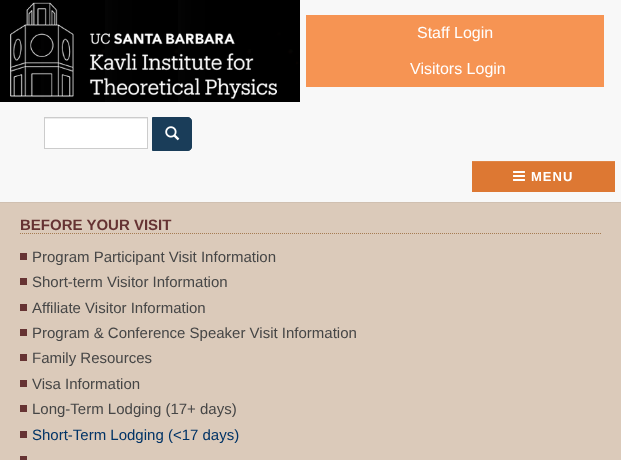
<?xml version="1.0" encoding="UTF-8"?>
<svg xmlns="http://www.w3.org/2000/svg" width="621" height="460">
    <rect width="100%" height="100%" fill="#F8F8F8"/>
    <image x="0" y="0" width="300" height="102" href="img_01.png"/>
    <image x="10" y="2" width="267" height="97" href="img_02.png"/>
    <rect x="306" y="15" width="298" height="72" fill="#F69453"/>
    <text x="417" y="38" font-family="Liberation Sans" font-size="16" fill="#FFFFFF">Staff Login</text>
    <text x="410" y="74" font-family="Liberation Sans" font-size="16" fill="#FFFFFF">Visitors Login</text>
    <rect x="45" y="119" width="102" height="29" fill="#FFFFFF"/>
    <rect x="45" y="118" width="102" height="1" fill="#ECECEC"/>
    <rect x="44.5" y="117.5" width="103" height="31" fill="none" stroke="#CCCCCC"/>
    <path d="M 152.5 117.5 H 188 C 190 117.5 191.5 119 191.5 121 V 147 C 191.5 149 190 150.5 188 150.5 H 152.5 Z" fill="#1A3D59" stroke="#1A3D59"/>
    <image x="165" y="126" width="15" height="15" href="img_03.png"/>
    <rect x="472" y="162" width="143" height="30" fill="#DD7833"/>
    <rect x="472" y="161" width="143" height="1" fill="#E08647"/>
    <image x="513" y="171" width="12" height="10" href="img_04.png"/>
    <text x="531" y="181" font-family="Liberation Sans" font-size="13" font-weight="700" letter-spacing="1" fill="#FFFFFF">MENU</text>
    <rect x="0" y="203" width="621" height="257" fill="#DBCABA"/>
    <rect x="0" y="202" width="621" height="1" fill="#D0C0B1"/>
    <path d="M 20 233.5 H 601" fill="none" stroke="#A67C52" stroke-dasharray="1 1"/>
    <text x="20" y="230" font-family="Liberation Sans" font-size="15" font-weight="700" fill="#663333">BEFORE YOUR VISIT</text>
    <rect x="20" y="253" width="7" height="7" fill="#663333"/>
    <text x="32" y="262" font-family="Liberation Sans" font-size="15" fill="#464646">Program Participant Visit Information</text>
    <rect x="20" y="278" width="7" height="7" fill="#663333"/>
    <text x="32" y="287" font-family="Liberation Sans" font-size="15" fill="#464646">Short-term Visitor Information</text>
    <rect x="20" y="304" width="7" height="7" fill="#663333"/>
    <text x="32" y="313" font-family="Liberation Sans" font-size="15" fill="#464646">Affiliate Visitor Information</text>
    <rect x="20" y="329" width="7" height="7" fill="#663333"/>
    <text x="32" y="338" font-family="Liberation Sans" font-size="15" fill="#464646">Program &amp; Conference Speaker Visit Information</text>
    <rect x="20" y="354" width="7" height="7" fill="#663333"/>
    <text x="32" y="363" font-family="Liberation Sans" font-size="15" fill="#464646">Family Resources</text>
    <rect x="20" y="380" width="7" height="7" fill="#663333"/>
    <text x="32" y="389" font-family="Liberation Sans" font-size="15" fill="#464646">Visa Information</text>
    <rect x="20" y="405" width="7" height="7" fill="#663333"/>
    <text x="32" y="414" font-family="Liberation Sans" font-size="15" fill="#464646">Long-Term Lodging (17+ days)</text>
    <rect x="20" y="431" width="7" height="7" fill="#663333"/>
    <text x="32" y="440" font-family="Liberation Sans" font-size="15" fill="#003366">Short-Term Lodging (&lt;17 days)</text>
    <rect x="20" y="456" width="7" height="4" fill="#663333"/>
</svg>
